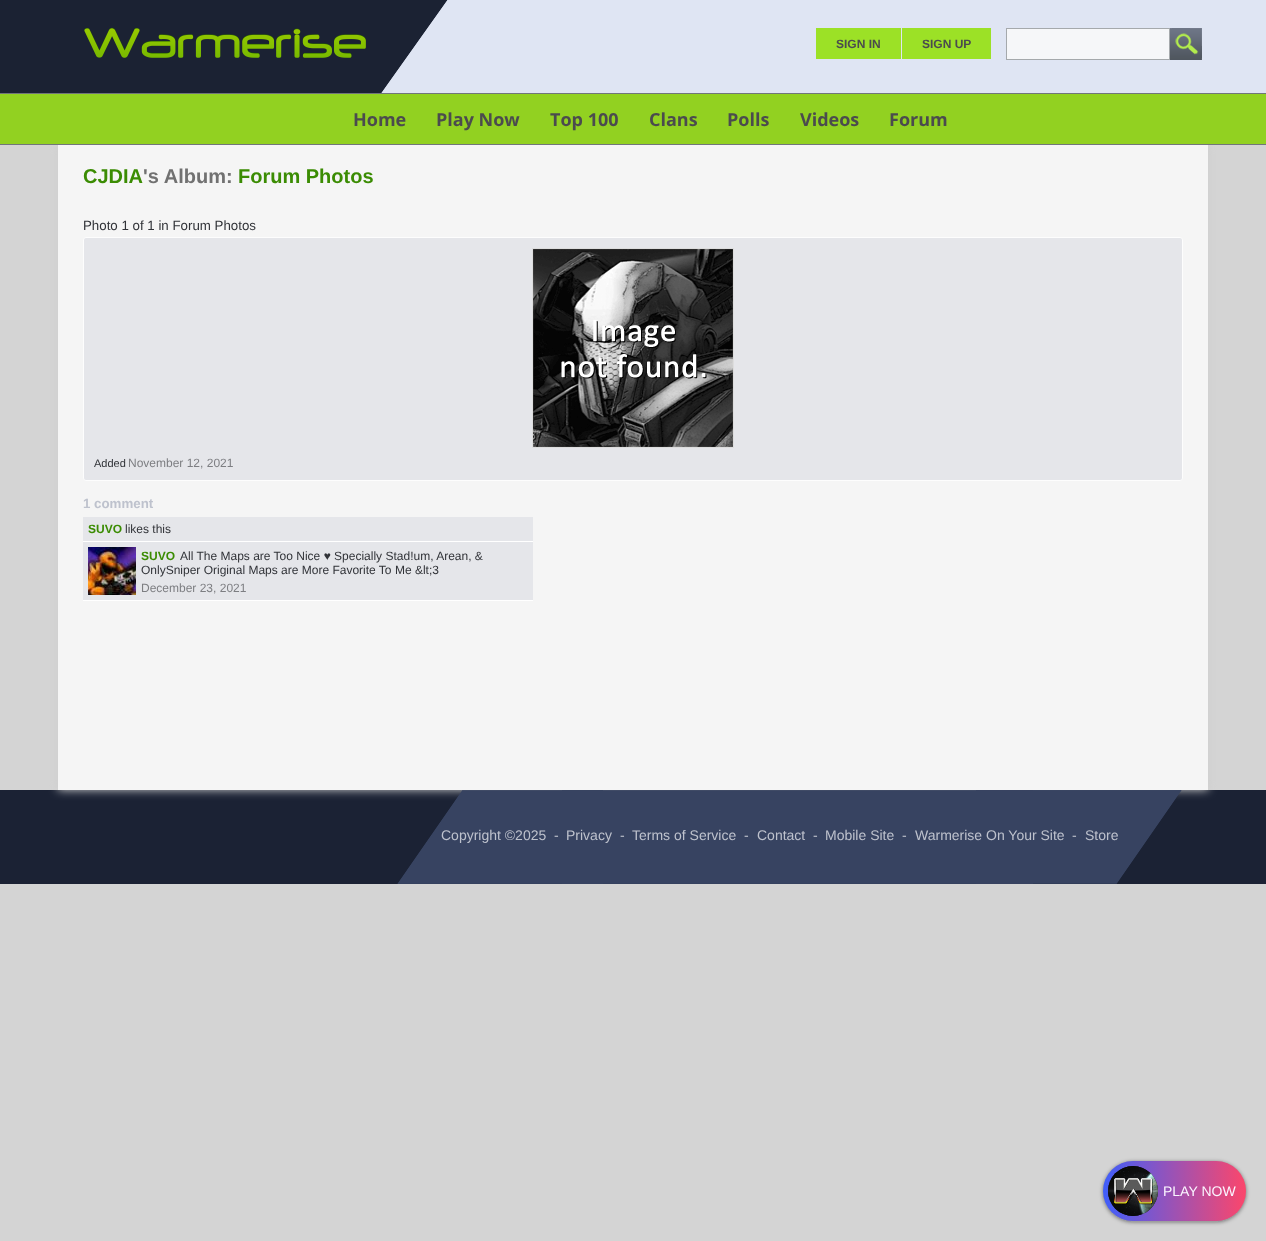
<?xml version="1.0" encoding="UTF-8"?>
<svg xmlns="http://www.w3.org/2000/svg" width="1266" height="1241">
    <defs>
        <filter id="blur1" x="-50%" y="-200%" width="200%" height="500%"><feGaussianBlur stdDeviation="5"/></filter>
        <filter id="blur2" x="-50%" y="-200%" width="200%" height="500%"><feGaussianBlur stdDeviation="2"/></filter>
        <linearGradient id="g1" gradientUnits="userSpaceOnUse" x1="1103" y1="1191" x2="1246" y2="1191"><stop offset="0" stop-color="#3F5EFB"/><stop offset="1" stop-color="#FC466B"/></linearGradient>
    </defs>
    <rect width="100%" height="100%" fill="#D4D4D4"/>
    <rect x="0" y="790" width="1266" height="94" fill="#1B2234"/>
    <rect x="58" y="145" width="1150" height="645" fill="#CDCDCD" filter="url(#blur1)"/>
    <rect x="58" y="145" width="1150" height="645" fill="#F5F5F5"/>
    <text x="83" y="183" font-family="Liberation Sans" font-size="20" font-weight="700" fill="#3B8C03">CJDIA</text>
    <text x="143" y="183" font-family="Liberation Sans" font-size="20" font-weight="700" fill="#717171">'s Album:</text>
    <text x="238" y="183" font-family="Liberation Sans" font-size="20" font-weight="700" fill="#3B8C03">Forum Photos</text>
    <text x="83" y="230" font-family="Liberation Sans" font-size="13.3" fill="#313338">Photo 1 of 1 in Forum Photos</text>
    <rect x="83.5" y="237.5" width="1099" height="243" rx="2.5" fill="#E5E6EA" stroke="#FDFDFD"/>
    <rect x="532.5" y="248.5" width="201" height="199" fill="none" stroke="#DDDDDD"/>
    <image x="533" y="249" width="200" height="198" href="img_01.png"/>
    <text x="94" y="467" font-family="Liberation Sans" font-size="11" fill="#313338">Added</text>
    <text x="128" y="467" font-family="Liberation Sans" font-size="12" fill="#7D7E82">November 12, 2021</text>
    <text x="83" y="508" font-family="Liberation Sans" font-size="13.3" font-weight="700" fill="#BEC2CD">1 comment</text>
    <rect x="83" y="517" width="450" height="24" fill="#E5E6EA"/>
    <rect x="83" y="541" width="450" height="1" fill="#FFFFFF"/>
    <text x="88" y="533" font-family="Liberation Sans" font-size="12" font-weight="700" fill="#3B8C03">SUVO</text>
    <text x="125" y="533" font-family="Liberation Sans" font-size="12" fill="#313338">likes this</text>
    <rect x="83" y="542" width="450" height="58" fill="#E5E6EA"/>
    <rect x="83" y="600" width="450" height="1" fill="#FFFFFF"/>
    <image x="88" y="547" width="48" height="48" href="img_02.png"/>
    <text x="141" y="560" font-family="Liberation Sans" font-size="12" font-weight="700" fill="#3B8C03">SUVO</text>
    <text x="180" y="560" font-family="Liberation Sans" font-size="12" fill="#313338">All The Maps are Too Nice ♥ Specially Stad!um, Arean, &amp;</text>
    <text x="141" y="574" font-family="Liberation Sans" font-size="12" fill="#313338">OnlySniper Original Maps are More Favorite To Me &amp;lt;3</text>
    <text x="141" y="592" font-family="Liberation Sans" font-size="12" fill="#7D7E82">December 23, 2021</text>
    <rect x="381" y="0" width="885" height="93" fill="#DFE5F3"/>
    <rect x="0" y="0" width="58" height="93" fill="#1B2233"/>
    <image x="58" y="0" width="390" height="93" href="img_03.png"/>
    <image x="84" y="27" width="282" height="31" href="img_04.png"/>
    <rect x="816" y="28" width="85" height="31" fill="#9CE126"/>
    <text x="836" y="48" font-family="Liberation Sans" font-size="12" font-weight="700" fill="#4B4B4E">SIGN IN</text>
    <rect x="902" y="28" width="89" height="31" fill="#9CE126"/>
    <text x="922" y="48" font-family="Liberation Sans" font-size="12" font-weight="700" fill="#4B4B4E">SIGN UP</text>
    <image x="1170" y="28" width="32" height="32" href="img_05.png"/>
    <rect x="1006.5" y="28.5" width="163" height="31" fill="#F6F7F9" stroke="#A5A9AC"/>
    <rect x="0" y="94" width="1266" height="50" fill="#92D121"/>
    <rect x="0" y="93" width="1266" height="1" fill="#71767A"/>
    <rect x="0" y="144" width="1266" height="1" fill="#71767A"/>
    <text x="353" y="126" font-family="Open Sans" font-size="18" font-weight="700" fill="#4B4B4E">Home</text>
    <text x="436" y="126" font-family="Open Sans" font-size="18" font-weight="700" fill="#4B4B4E">Play Now</text>
    <text x="550" y="126" font-family="Open Sans" font-size="18" font-weight="700" fill="#4B4B4E">Top 100</text>
    <text x="649" y="126" font-family="Open Sans" font-size="18" font-weight="700" fill="#4B4B4E">Clans</text>
    <text x="727" y="126" font-family="Open Sans" font-size="18" font-weight="700" fill="#4B4B4E">Polls</text>
    <text x="800" y="126" font-family="Open Sans" font-size="18" font-weight="700" fill="#4B4B4E">Videos</text>
    <text x="889" y="126" font-family="Open Sans" font-size="18" font-weight="700" fill="#4B4B4E">Forum</text>
    <rect x="1103" y="1162" width="143" height="60" rx="30" fill="#101011" fill-opacity="0.5" filter="url(#blur2)"/>
    <rect x="1103" y="1161" width="143" height="60" rx="30" fill="url(#g1)"/>
    <circle cx="1133" cy="1191" r="25" fill="#0E0E0F"/>
    <image x="1108" y="1166" width="50" height="50" href="img_06.png"/>
    <text x="1163" y="1196" font-family="Liberation Sans" font-size="14" fill="#FBF5FF">PLAY NOW</text>
    <image x="397" y="790" width="785" height="94" href="img_07.png"/>
    <text x="441" y="840" font-family="Liberation Sans" font-size="14" fill="#BEC2CD">Copyright ©2025</text>
    <text x="554" y="840" font-family="Liberation Sans" font-size="14" fill="#BEC2CD">-</text>
    <text x="566" y="840" font-family="Liberation Sans" font-size="14" fill="#BEC2CD">Privacy</text>
    <text x="620" y="840" font-family="Liberation Sans" font-size="14" fill="#BEC2CD">-</text>
    <text x="632" y="840" font-family="Liberation Sans" font-size="14" fill="#BEC2CD">Terms of Service</text>
    <text x="744" y="840" font-family="Liberation Sans" font-size="14" fill="#BEC2CD">-</text>
    <text x="757" y="840" font-family="Liberation Sans" font-size="14" fill="#BEC2CD">Contact</text>
    <text x="813" y="840" font-family="Liberation Sans" font-size="14" fill="#BEC2CD">-</text>
    <text x="825" y="840" font-family="Liberation Sans" font-size="14" fill="#BEC2CD">Mobile Site</text>
    <text x="902" y="840" font-family="Liberation Sans" font-size="14" fill="#BEC2CD">-</text>
    <text x="915" y="840" font-family="Liberation Sans" font-size="14" fill="#BEC2CD">Warmerise On Your Site</text>
    <text x="1072" y="840" font-family="Liberation Sans" font-size="14" fill="#BEC2CD">-</text>
    <text x="1085" y="840" font-family="Liberation Sans" font-size="14" fill="#BEC2CD">Store</text>
</svg>
